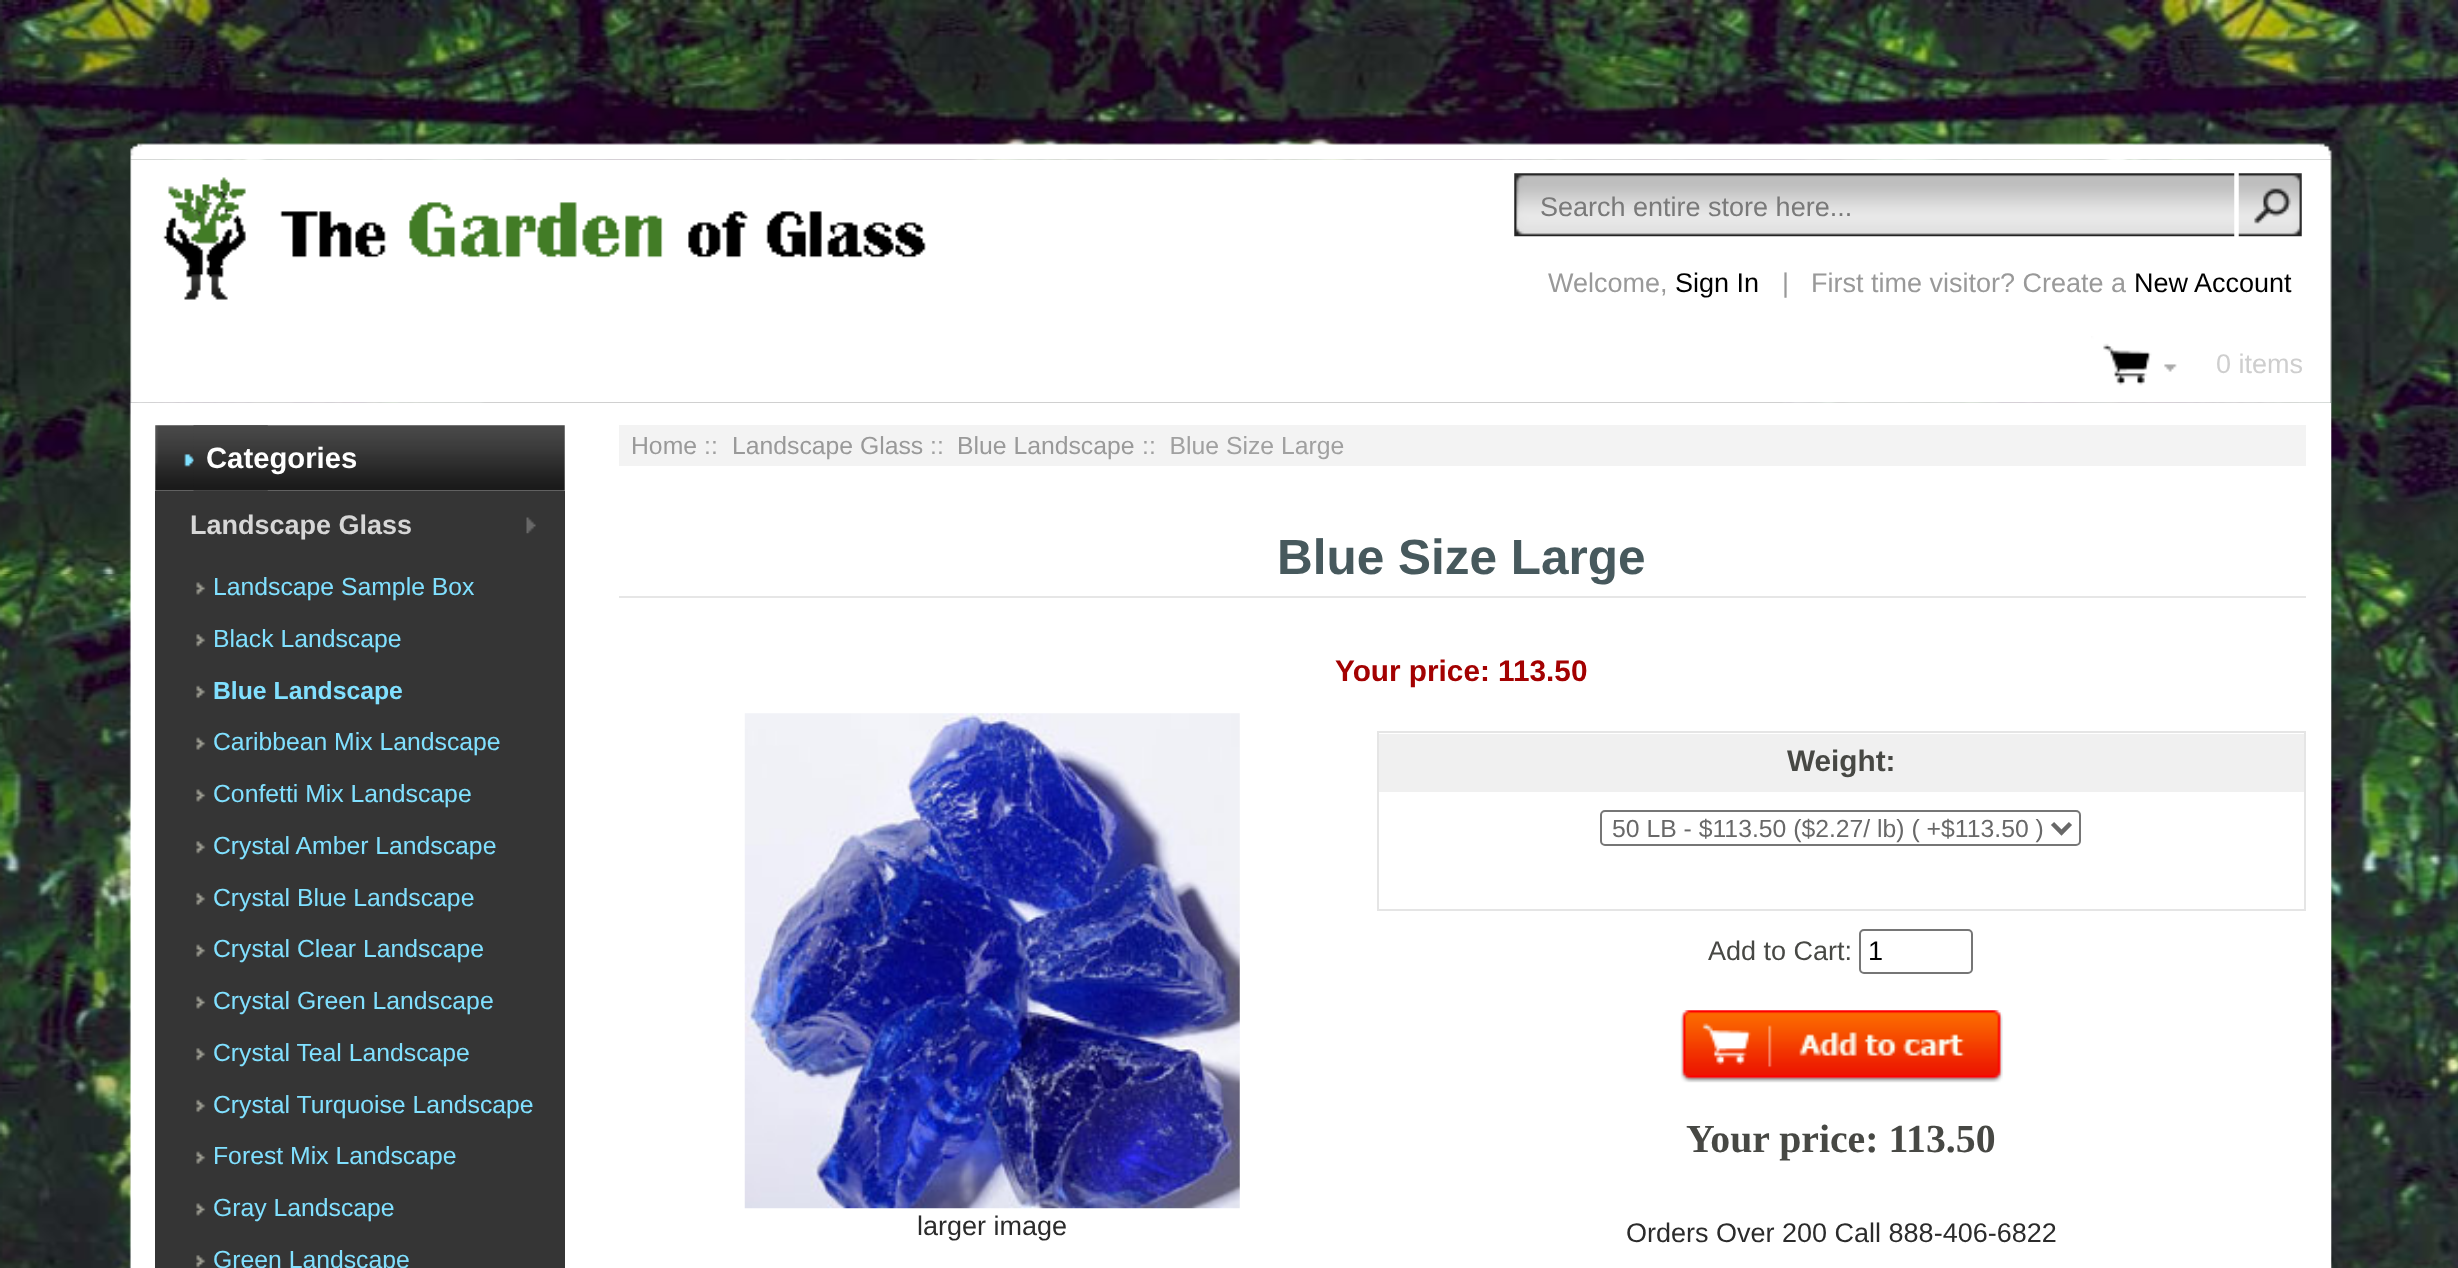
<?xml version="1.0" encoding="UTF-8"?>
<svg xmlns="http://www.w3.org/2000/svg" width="2458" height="1268">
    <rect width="100%" height="100%" fill="#FFFFFF"/>
    <image x="0" y="0" width="2458" height="1268" href="img_01.png"/>
    <image x="130" y="143" width="2202" height="17" href="img_02.png"/>
    <image x="130" y="159" width="2202" height="244" href="img_03.png"/>
    <image x="163" y="177" width="763" height="123" href="img_04.png"/>
    <image x="1514" y="173" width="721" height="64" href="img_05.png"/>
    <text x="1540" y="216" font-family="Liberation Sans" font-size="27" fill="#797979">Search entire store here...</text>
    <image x="2238" y="173" width="64" height="64" href="img_06.png"/>
    <text x="1548" y="292" font-family="Liberation Sans" font-size="27" fill="#999999">Welcome,</text>
    <text x="1675" y="292" font-family="Liberation Sans" font-size="27" fill="#000000">Sign In</text>
    <text x="1782" y="292" font-family="Liberation Sans" font-size="27" fill="#999999">|</text>
    <text x="1811" y="292" font-family="Liberation Sans" font-size="27" fill="#999999">First time visitor? Create a</text>
    <text x="2134" y="292" font-family="Liberation Sans" font-size="27" fill="#000000">New Account</text>
    <image x="2091" y="336" width="86" height="50" href="img_07.png"/>
    <text x="2216" y="373" font-family="Liberation Sans" font-size="27" fill="#CECECE">0 items</text>
    <image x="129" y="402" width="2203" height="866" href="img_08.png"/>
    <rect x="2330" y="403" width="1" height="865" fill="#FFFFFF"/>
    <rect x="131" y="403" width="1" height="865" fill="#FFFFFF"/>
    <image x="155" y="425" width="113" height="66" href="img_09.png"/>
    <image x="193" y="425" width="372" height="66" href="img_10.png"/>
    <text x="206" y="468" font-family="Liberation Sans" font-size="29.25" font-weight="700" fill="#FFFFFF">Categories</text>
    <rect x="155" y="491" width="410" height="777" fill="#353535"/>
    <image x="155" y="490" width="410" height="1" href="img_11.png"/>
    <image x="526" y="517" width="10" height="17" href="img_12.png"/>
    <text x="190" y="534" font-family="Liberation Sans" font-size="27" font-weight="700" fill="#D6D6D6">Landscape Glass</text>
    <image x="196" y="582" width="10" height="13" href="img_13.png"/>
    <text x="213" y="595" font-family="Liberation Sans" font-size="24.75" fill="#80E0FF">Landscape Sample Box</text>
    <image x="196" y="634" width="10" height="13" href="img_14.png"/>
    <text x="213" y="647" font-family="Liberation Sans" font-size="24.75" fill="#80E0FF">Black Landscape</text>
    <image x="196" y="685" width="10" height="14" href="img_15.png"/>
    <text x="213" y="699" font-family="Liberation Sans" font-size="24.75" font-weight="700" fill="#80E0FF">Blue Landscape</text>
    <image x="196" y="737" width="10" height="13" href="img_16.png"/>
    <text x="213" y="750" font-family="Liberation Sans" font-size="24.75" fill="#80E0FF">Caribbean Mix Landscape</text>
    <image x="196" y="789" width="10" height="13" href="img_13.png"/>
    <text x="213" y="802" font-family="Liberation Sans" font-size="24.75" fill="#80E0FF">Confetti Mix Landscape</text>
    <image x="196" y="841" width="10" height="13" href="img_14.png"/>
    <text x="213" y="854" font-family="Liberation Sans" font-size="24.75" fill="#80E0FF">Crystal Amber Landscape</text>
    <image x="196" y="892" width="10" height="14" href="img_15.png"/>
    <text x="213" y="906" font-family="Liberation Sans" font-size="24.75" fill="#80E0FF">Crystal Blue Landscape</text>
    <image x="196" y="944" width="10" height="13" href="img_16.png"/>
    <text x="213" y="957" font-family="Liberation Sans" font-size="24.75" fill="#80E0FF">Crystal Clear Landscape</text>
    <image x="196" y="996" width="10" height="13" href="img_13.png"/>
    <text x="213" y="1009" font-family="Liberation Sans" font-size="24.75" fill="#80E0FF">Crystal Green Landscape</text>
    <image x="196" y="1048" width="10" height="13" href="img_14.png"/>
    <text x="213" y="1061" font-family="Liberation Sans" font-size="24.75" fill="#80E0FF">Crystal Teal Landscape</text>
    <image x="196" y="1099" width="10" height="14" href="img_15.png"/>
    <text x="213" y="1113" font-family="Liberation Sans" font-size="24.75" fill="#80E0FF">Crystal Turquoise Landscape</text>
    <image x="196" y="1151" width="10" height="13" href="img_16.png"/>
    <text x="213" y="1164" font-family="Liberation Sans" font-size="24.75" fill="#80E0FF">Forest Mix Landscape</text>
    <image x="196" y="1203" width="10" height="13" href="img_13.png"/>
    <text x="213" y="1216" font-family="Liberation Sans" font-size="24.75" fill="#80E0FF">Gray Landscape</text>
    <image x="196" y="1255" width="10" height="13" href="img_14.png"/>
    <text x="213" y="1268" font-family="Liberation Sans" font-size="24.75" fill="#80E0FF">Green Landscape</text>
    <rect x="619" y="425" width="1687" height="41" fill="#F3F3F3"/>
    <text x="631" y="454" font-family="Liberation Sans" font-size="24.75" fill="#999999">Home</text>
    <text x="704" y="454" font-family="Liberation Sans" font-size="24.75" fill="#A0A0A0">::</text>
    <text x="732" y="454" font-family="Liberation Sans" font-size="24.75" fill="#999999">Landscape Glass</text>
    <text x="930" y="454" font-family="Liberation Sans" font-size="24.75" fill="#A0A0A0">::</text>
    <text x="957" y="454" font-family="Liberation Sans" font-size="24.75" fill="#999999">Blue Landscape</text>
    <text x="1142" y="454" font-family="Liberation Sans" font-size="24.75" fill="#A0A0A0" xml:space="preserve">::  Blue Size Large</text>
    <rect x="619" y="596" width="1687" height="2" fill="#E6E6E6"/>
    <text x="1277" y="574" font-family="Liberation Sans" font-size="49.5" font-weight="700" fill="#47595D">Blue Size Large</text>
    <text x="1335" y="681" font-family="Liberation Sans" font-size="29.75" font-weight="700" fill="#A30101">Your price: 113.50</text>
    <image x="744" y="713" width="496" height="496" href="img_17.png"/>
    <text x="917" y="1235" font-family="Liberation Sans" font-size="27" fill="#2B2B2B">larger image</text>
    <rect x="1378" y="732" width="927" height="178" fill="none" stroke="#E5E5E5" stroke-width="2"/>
    <rect x="1379" y="734" width="925" height="58" fill="#F0F0F0"/>
    <text x="1787" y="771" font-family="Liberation Sans" font-size="29.75" font-weight="700" fill="#474844">Weight:</text>
    <rect x="1601" y="811" width="479" height="34" rx="4" fill="none" stroke="#767676" stroke-width="2"/>
    <path d="M 2052.5 823.5 L 2061.5 832.5 L 2070.5 823.5" fill="none" stroke="#686868" stroke-width="4.5"/>
    <text x="1612" y="837" font-family="Liberation Sans" font-size="24.75" fill="#686868">50 LB - $113.50 ($2.27/ lb) ( +$113.50 )</text>
    <text x="1708" y="960" font-family="Liberation Sans" font-size="27" fill="#474844">Add to Cart:</text>
    <rect x="1860" y="930" width="112" height="43" rx="4" fill="none" stroke="#767676" stroke-width="2"/>
    <text x="1868" y="960" font-family="Liberation Sans" font-size="27" fill="#000000">1</text>
    <image x="1680" y="1010" width="323" height="73" href="img_18.png"/>
    <text x="1686" y="1152" font-family="Liberation Serif" font-size="39.75" font-weight="700" fill="#474844">Your price: 113.50</text>
    <text x="1626" y="1242" font-family="Liberation Sans" font-size="27" fill="#2B2B2B">Orders Over 200 Call 888-406-6822</text>
</svg>
